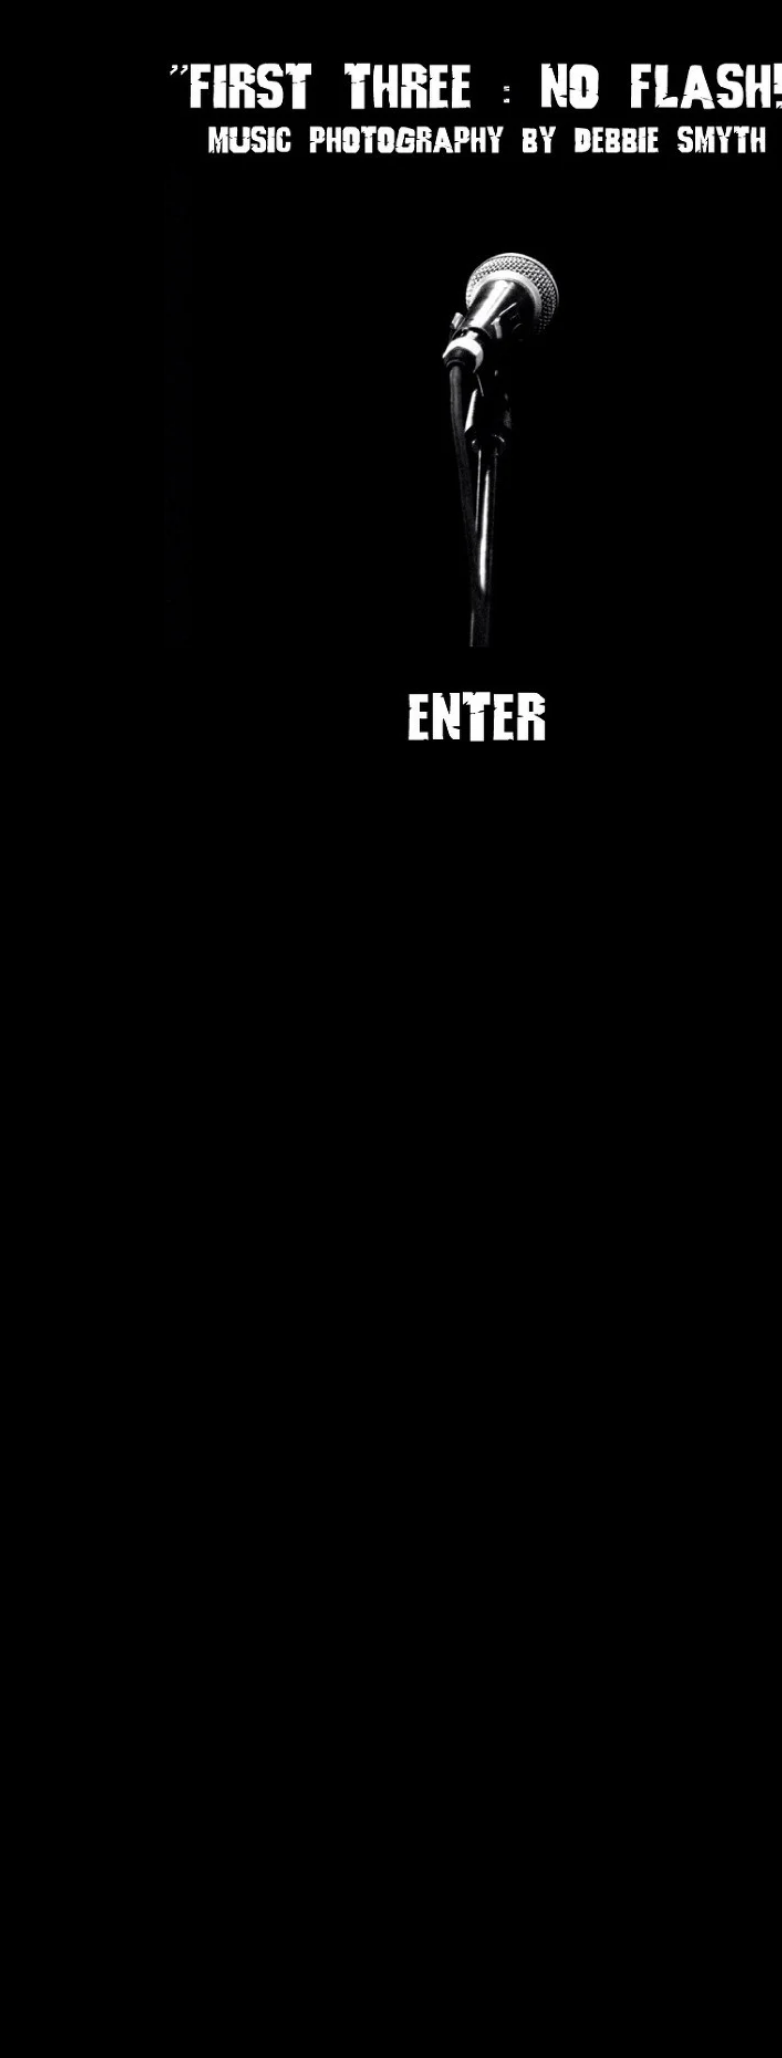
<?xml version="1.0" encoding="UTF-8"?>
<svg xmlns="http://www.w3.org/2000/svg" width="782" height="2058">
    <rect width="100%" height="100%" fill="#000000"/>
    <image x="164" y="60" width="618" height="682" href="img_01.png"/>
</svg>
